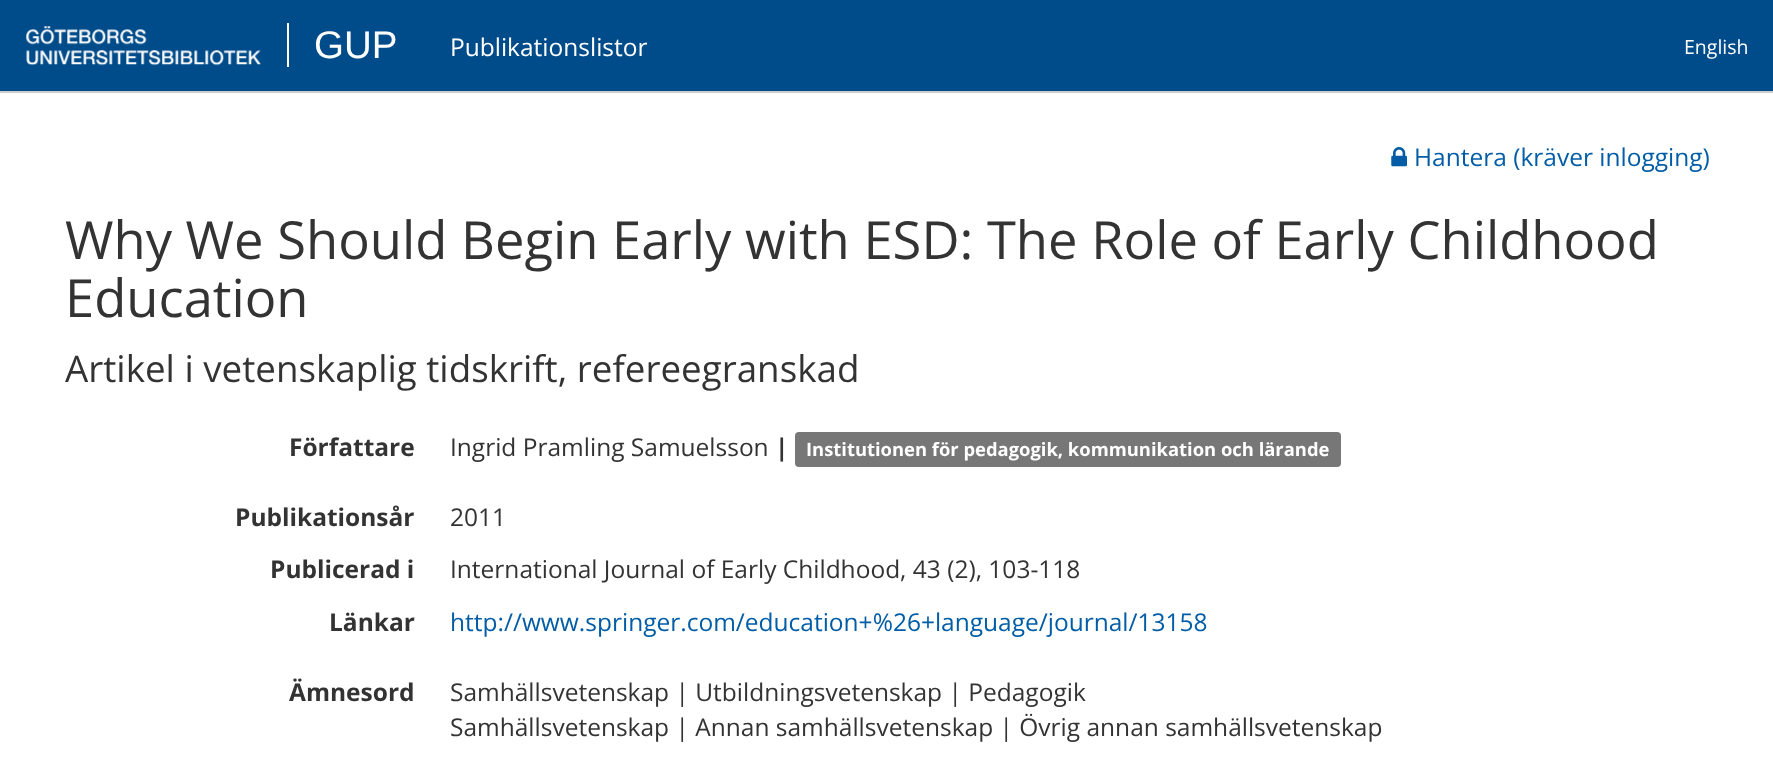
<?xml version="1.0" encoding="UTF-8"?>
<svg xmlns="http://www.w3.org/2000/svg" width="1773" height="757">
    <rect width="100%" height="100%" fill="#FFFFFF"/>
    <rect x="0" y="0" width="1773" height="91" fill="#004B89"/>
    <rect x="0" y="91" width="1773" height="2" fill="#CCCCCC"/>
    <image x="26" y="26" width="235" height="40" href="img_01.png"/>
    <rect x="287" y="23" width="2" height="44" fill="#FFFFFF"/>
    <text x="314" y="58" font-family="Liberation Sans" font-size="38.5" fill="#FFFFFF">GUP</text>
    <text x="450" y="56" font-family="Open Sans" font-size="24.5" fill="#FFFFFF">Publikationslistor</text>
    <text x="1684" y="54" font-family="Open Sans" font-size="19.5" fill="#FFFFFF">English</text>
    <image x="1391" y="147" width="16" height="20" href="img_02.png"/>
    <text x="1414" y="166" font-family="Open Sans" font-size="24.5" fill="#025DA6">Hantera (kräver inlogging)</text>
    <text font-family="Open Sans" font-size="52.5" fill="#333333">
        <tspan x="65" y="259">Why We Should Begin Early with ESD: The Role of Early Childhood</tspan>
        <tspan x="65" y="317">Education</tspan>
    </text>
    <text x="65" y="382" font-family="Open Sans" font-size="36.75" fill="#333333">Artikel i vetenskaplig tidskrift, refereegranskad</text>
    <text x="289" y="456" font-family="Open Sans" font-size="24.5" font-weight="700" fill="#333333">Författare</text>
    <text x="450" y="456" font-family="Open Sans" font-size="24.5" fill="#333333">Ingrid Pramling Samuelsson</text>
    <text x="775" y="456" font-family="Open Sans" font-size="24.5" font-weight="700" fill="#333333">|</text>
    <rect x="795" y="432" width="546" height="35" rx="4" fill="#777777"/>
    <text x="806" y="456" font-family="Open Sans" font-size="18.4" font-weight="700" fill="#FFFFFF">Institutionen för pedagogik, kommunikation och lärande</text>
    <text x="235" y="526" font-family="Open Sans" font-size="24.5" font-weight="700" fill="#333333">Publikationsår</text>
    <text x="450" y="526" font-family="Open Sans" font-size="24.5" fill="#333333">2011</text>
    <text x="270" y="578" font-family="Open Sans" font-size="24.5" font-weight="700" fill="#333333">Publicerad i</text>
    <text x="450" y="578" font-family="Open Sans" font-size="24.5" fill="#333333">International Journal of Early Childhood, 43 (2), 103-118</text>
    <text x="329" y="631" font-family="Open Sans" font-size="24.5" font-weight="700" fill="#333333">Länkar</text>
    <text x="450" y="631" font-family="Open Sans" font-size="24.5" fill="#025DA6">http://www.springer.com/education+%26+language/journal/13158</text>
    <text x="289" y="701" font-family="Open Sans" font-size="24.5" font-weight="700" fill="#333333">Ämnesord</text>
    <text font-family="Open Sans" font-size="24.5" fill="#333333">
        <tspan x="450" y="701">Samhällsvetenskap | Utbildningsvetenskap | Pedagogik</tspan>
        <tspan x="450" y="736">Samhällsvetenskap | Annan samhällsvetenskap | Övrig annan samhällsvetenskap</tspan>
    </text>
</svg>
